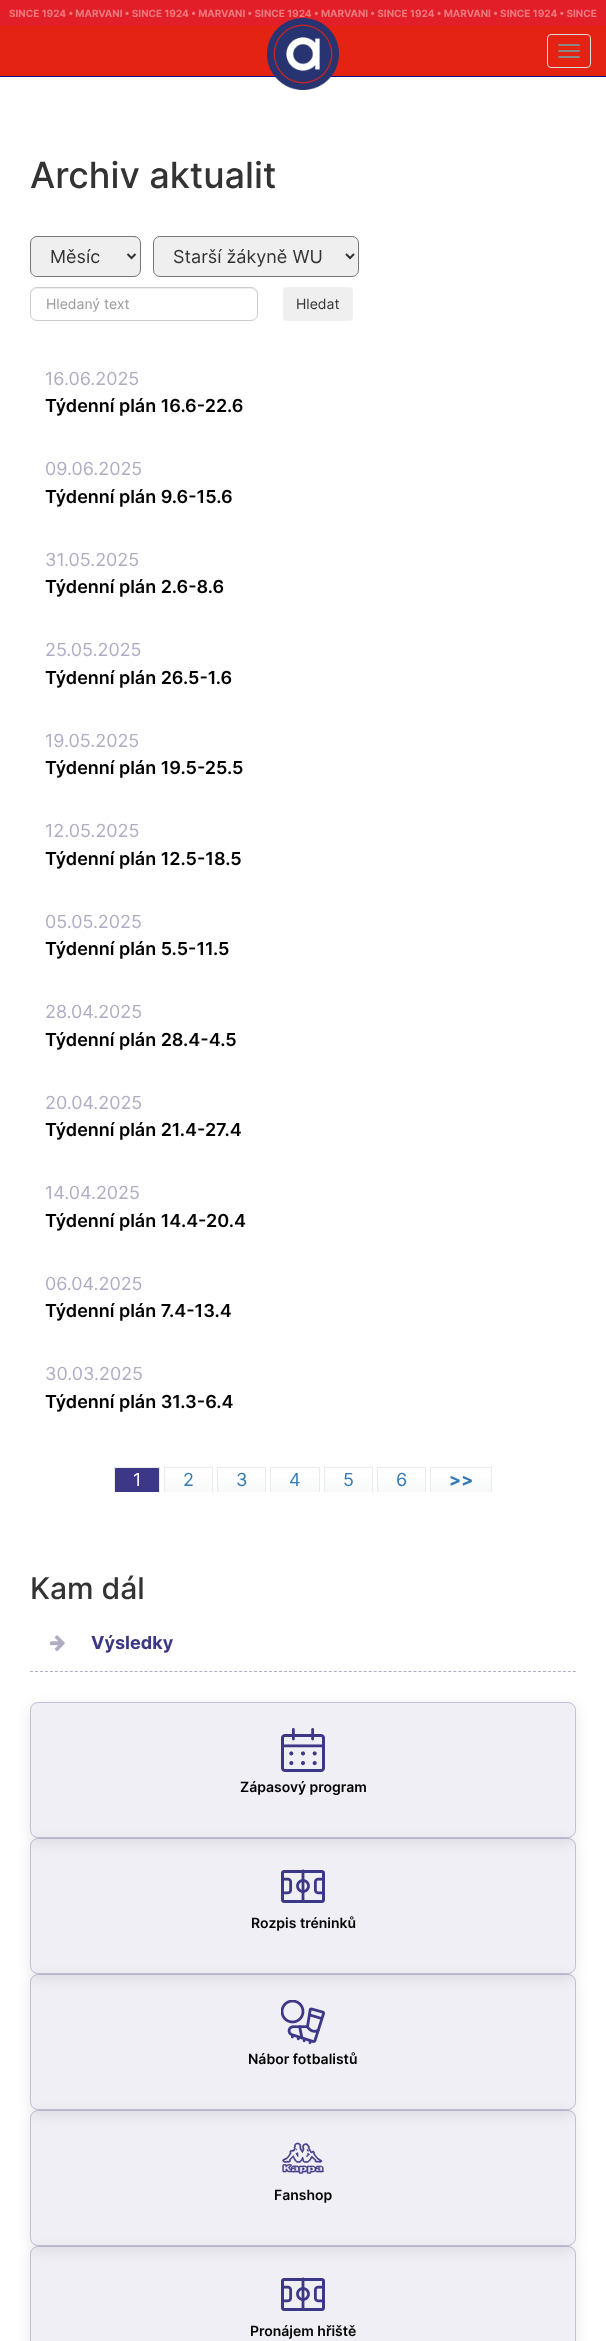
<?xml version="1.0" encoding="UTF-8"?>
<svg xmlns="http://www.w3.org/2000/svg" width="606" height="2341">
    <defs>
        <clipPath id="clip1"><rect x="30" y="1467" width="546" height="25"/></clipPath>
        <linearGradient id="g1" gradientUnits="userSpaceOnUse" x1="189" y1="1468" x2="189" y2="1493"><stop offset="0" stop-color="#FFFFFF"/><stop offset="1" stop-color="#F8F9FA"/></linearGradient>
        <linearGradient id="g2" gradientUnits="userSpaceOnUse" x1="242" y1="1468" x2="242" y2="1493"><stop offset="0" stop-color="#FFFFFF"/><stop offset="1" stop-color="#F8F9FA"/></linearGradient>
        <linearGradient id="g3" gradientUnits="userSpaceOnUse" x1="295" y1="1468" x2="295" y2="1493"><stop offset="0" stop-color="#FFFFFF"/><stop offset="1" stop-color="#F8F9FA"/></linearGradient>
        <linearGradient id="g4" gradientUnits="userSpaceOnUse" x1="349" y1="1468" x2="349" y2="1493"><stop offset="0" stop-color="#FFFFFF"/><stop offset="1" stop-color="#F8F9FA"/></linearGradient>
        <linearGradient id="g5" gradientUnits="userSpaceOnUse" x1="402" y1="1468" x2="402" y2="1493"><stop offset="0" stop-color="#FFFFFF"/><stop offset="1" stop-color="#F8F9FA"/></linearGradient>
        <linearGradient id="g6" gradientUnits="userSpaceOnUse" x1="461" y1="1468" x2="461" y2="1493"><stop offset="0" stop-color="#FFFFFF"/><stop offset="1" stop-color="#F8F9FA"/></linearGradient>
        <clipPath id="clip2"><path d="M 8 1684 H 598 V 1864 H 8 Z M 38 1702 H 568 C 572.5 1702 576 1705.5 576 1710 V 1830 C 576 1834.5 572.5 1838 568 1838 H 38 C 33.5 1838 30 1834.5 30 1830 V 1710 C 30 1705.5 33.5 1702 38 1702 Z" clip-rule="evenodd"/></clipPath>
        <filter id="blur1" x="-50%" y="-200%" width="200%" height="500%"><feGaussianBlur stdDeviation="7"/></filter>
        <clipPath id="clip3"><path d="M 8 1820 H 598 V 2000 H 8 Z M 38 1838 H 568 C 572.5 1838 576 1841.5 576 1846 V 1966 C 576 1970.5 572.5 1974 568 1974 H 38 C 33.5 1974 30 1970.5 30 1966 V 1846 C 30 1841.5 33.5 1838 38 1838 Z" clip-rule="evenodd"/></clipPath>
        <clipPath id="clip4"><path d="M 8 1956 H 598 V 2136 H 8 Z M 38 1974 H 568 C 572.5 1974 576 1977.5 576 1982 V 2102 C 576 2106.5 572.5 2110 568 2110 H 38 C 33.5 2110 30 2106.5 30 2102 V 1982 C 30 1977.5 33.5 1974 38 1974 Z" clip-rule="evenodd"/></clipPath>
        <clipPath id="clip5"><path d="M 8 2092 H 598 V 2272 H 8 Z M 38 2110 H 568 C 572.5 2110 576 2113.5 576 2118 V 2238 C 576 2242.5 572.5 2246 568 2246 H 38 C 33.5 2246 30 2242.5 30 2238 V 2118 C 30 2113.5 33.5 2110 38 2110 Z" clip-rule="evenodd"/></clipPath>
        <clipPath id="clip6"><path d="M 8 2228 H 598 V 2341 H 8 Z M 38 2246 H 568 C 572.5 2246 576 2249.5 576 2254 V 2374 C 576 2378.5 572.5 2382 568 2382 H 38 C 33.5 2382 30 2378.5 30 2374 V 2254 C 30 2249.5 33.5 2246 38 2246 Z" clip-rule="evenodd"/></clipPath>
    </defs>
    <rect width="100%" height="100%" fill="#FFFFFF"/>
    <rect x="0" y="0" width="606" height="26" fill="#E21F29"/>
    <text x="9" y="17" font-family="Inter" font-size="10" font-weight="700" fill="#EE797F">SINCE 1924 • MARVANI • SINCE 1924 • MARVANI • SINCE 1924 • MARVANI • SINCE 1924 • MARVANI • SINCE 1924 • SINCE</text>
    <rect x="0" y="26" width="606" height="50" fill="#E42313"/>
    <rect x="0" y="76" width="606" height="1" fill="#001489"/>
    <image x="267" y="18" width="72" height="72" href="img_01.png"/>
    <rect x="547.5" y="34.5" width="43" height="33" rx="3.5" fill="none" stroke="#DDDDDD"/>
    <rect x="558" y="44" width="22" height="2" rx="1" fill="#888888"/>
    <rect x="558" y="50" width="22" height="2" rx="1" fill="#888888"/>
    <rect x="558" y="56" width="22" height="2" rx="1" fill="#888888"/>
    <text x="30" y="188" font-family="Inter" font-size="36" font-weight="500" fill="#333333">Archiv aktualit</text>
    <rect x="30.5" y="236.5" width="110" height="40" rx="6.5" fill="#EFEFEF" stroke="#767676"/>
    <path d="M 127.5 254 L 131.5 258 L 135.5 254" fill="none" stroke="#333333" stroke-width="2"/>
    <text x="50" y="263" font-family="Inter" font-size="18" fill="#333333">Měsíc</text>
    <rect x="153.5" y="236.5" width="205" height="40" rx="6.5" fill="#EFEFEF" stroke="#767676"/>
    <path d="M 346 254 L 350 258 L 354 254" fill="none" stroke="#333333" stroke-width="2"/>
    <text x="173" y="263" font-family="Inter" font-size="18" fill="#333333">Starší žákyně WU</text>
    <path d="M 37 289 H 251 C 254 289 257 292 257 295 V 294 C 257 291 254 288 251 288 H 37 C 34 288 31 291 31 294 V 295 C 31 292 34 289 37 289 Z" fill="#ECECEC"/>
    <rect x="30.5" y="287.5" width="227" height="33" rx="6.5" fill="none" stroke="#CCCCCC"/>
    <text x="46" y="309" font-family="Inter" font-size="14" fill="#999999">Hledaný text</text>
    <rect x="283" y="287" width="70" height="34" rx="4" fill="#EFEFEF"/>
    <text x="296" y="309" font-family="Inter" font-size="14" fill="#333333">Hledat</text>
    <text x="45" y="385" font-family="Inter" font-size="18" fill="#AFADC4">16.06.2025</text>
    <text x="45" y="412" font-family="Inter" font-size="18" font-weight="600" fill="#000000">Týdenní plán 16.6-22.6</text>
    <text x="45" y="475" font-family="Inter" font-size="18" fill="#AFADC4">09.06.2025</text>
    <text x="45" y="503" font-family="Inter" font-size="18" font-weight="600" fill="#000000">Týdenní plán 9.6-15.6</text>
    <text x="45" y="566" font-family="Inter" font-size="18" fill="#AFADC4">31.05.2025</text>
    <text x="45" y="593" font-family="Inter" font-size="18" font-weight="600" fill="#000000">Týdenní plán 2.6-8.6</text>
    <text x="45" y="656" font-family="Inter" font-size="18" fill="#AFADC4">25.05.2025</text>
    <text x="45" y="684" font-family="Inter" font-size="18" font-weight="600" fill="#000000">Týdenní plán 26.5-1.6</text>
    <text x="45" y="747" font-family="Inter" font-size="18" fill="#AFADC4">19.05.2025</text>
    <text x="45" y="774" font-family="Inter" font-size="18" font-weight="600" fill="#000000">Týdenní plán 19.5-25.5</text>
    <text x="45" y="837" font-family="Inter" font-size="18" fill="#AFADC4">12.05.2025</text>
    <text x="45" y="865" font-family="Inter" font-size="18" font-weight="600" fill="#000000">Týdenní plán 12.5-18.5</text>
    <text x="45" y="928" font-family="Inter" font-size="18" fill="#AFADC4">05.05.2025</text>
    <text x="45" y="955" font-family="Inter" font-size="18" font-weight="600" fill="#000000">Týdenní plán 5.5-11.5</text>
    <text x="45" y="1018" font-family="Inter" font-size="18" fill="#AFADC4">28.04.2025</text>
    <text x="45" y="1046" font-family="Inter" font-size="18" font-weight="600" fill="#000000">Týdenní plán 28.4-4.5</text>
    <text x="45" y="1109" font-family="Inter" font-size="18" fill="#AFADC4">20.04.2025</text>
    <text x="45" y="1136" font-family="Inter" font-size="18" font-weight="600" fill="#000000">Týdenní plán 21.4-27.4</text>
    <text x="45" y="1199" font-family="Inter" font-size="18" fill="#AFADC4">14.04.2025</text>
    <text x="45" y="1227" font-family="Inter" font-size="18" font-weight="600" fill="#000000">Týdenní plán 14.4-20.4</text>
    <text x="45" y="1290" font-family="Inter" font-size="18" fill="#AFADC4">06.04.2025</text>
    <text x="45" y="1317" font-family="Inter" font-size="18" font-weight="600" fill="#000000">Týdenní plán 7.4-13.4</text>
    <text x="45" y="1380" font-family="Inter" font-size="18" fill="#AFADC4">30.03.2025</text>
    <text x="45" y="1408" font-family="Inter" font-size="18" font-weight="600" fill="#000000">Týdenní plán 31.3-6.4</text>
    <path d="M 116 1467 H 158 C 159 1467 160 1468 160 1469 V 1492 H 114 V 1469 C 114 1468 115 1467 116 1467 Z" fill="#3D3787"/>
    <g clip-path="url(#clip1)">
        <rect x="114.5" y="1467.5" width="45" height="26" rx="1.5" fill="none" stroke="#E9ECEF"/>
    </g>
    <text x="133" y="1486" font-family="Inter" font-size="18" fill="#FFFFFF">1</text>
    <rect x="165" y="1477" width="47" height="15" fill="url(#g1)"/>
    <g clip-path="url(#clip1)">
        <rect x="164.5" y="1467.5" width="48" height="26" fill="none" stroke="#E9ECEF"/>
    </g>
    <text x="183" y="1486" font-family="Inter" font-size="18" fill="#337AB7">2</text>
    <rect x="218" y="1477" width="47" height="15" fill="url(#g2)"/>
    <g clip-path="url(#clip1)">
        <rect x="217.5" y="1467.5" width="48" height="26" fill="none" stroke="#E9ECEF"/>
    </g>
    <text x="236" y="1486" font-family="Inter" font-size="18" fill="#337AB7">3</text>
    <rect x="271" y="1477" width="48" height="15" fill="url(#g3)"/>
    <g clip-path="url(#clip1)">
        <rect x="270.5" y="1467.5" width="49" height="26" fill="none" stroke="#E9ECEF"/>
    </g>
    <text x="289" y="1486" font-family="Inter" font-size="18" fill="#337AB7">4</text>
    <rect x="325" y="1477" width="47" height="15" fill="url(#g4)"/>
    <g clip-path="url(#clip1)">
        <rect x="324.5" y="1467.5" width="48" height="26" fill="none" stroke="#E9ECEF"/>
    </g>
    <text x="343" y="1486" font-family="Inter" font-size="18" fill="#337AB7">5</text>
    <rect x="378" y="1477" width="47" height="15" fill="url(#g5)"/>
    <g clip-path="url(#clip1)">
        <rect x="377.5" y="1467.5" width="48" height="26" fill="none" stroke="#E9ECEF"/>
    </g>
    <text x="396" y="1486" font-family="Inter" font-size="18" fill="#337AB7">6</text>
    <rect x="431" y="1477" width="60" height="15" fill="url(#g6)"/>
    <g clip-path="url(#clip1)">
        <rect x="430.5" y="1467.5" width="61" height="26" fill="none" stroke="#E9ECEF"/>
    </g>
    <text x="449" y="1486" font-family="Inter" font-size="18" font-weight="700" fill="#337AB7">&gt;&gt;</text>
    <text x="30" y="1599" font-family="Inter" font-size="30" font-weight="500" fill="#333333">Kam dál</text>
    <path d="M 30 1671.5 H 576" fill="none" stroke="#AFADC4" stroke-dasharray="3 1.98"/>
    <image x="50" y="1635" width="15" height="16" href="img_02.png"/>
    <text x="91" y="1649" font-family="Inter" font-size="18" font-weight="700" fill="#3D3787">Výsledky</text>
    <g clip-path="url(#clip2)">
        <rect x="30" y="1706" width="546" height="136" rx="8" fill="#000000" fill-opacity="0.09" filter="url(#blur1)"/>
    </g>
    <rect x="30" y="1702" width="546" height="136" rx="8" fill="#3D3787" fill-opacity="0.08"/>
    <rect x="30.5" y="1702.5" width="545" height="135" rx="7.5" fill="none" stroke="#3D3787" stroke-opacity="0.25"/>
    <image x="281" y="1728" width="44" height="44" href="img_03.png"/>
    <text x="240" y="1792" font-family="Inter" font-size="14" font-weight="600" fill="#000000">Zápasový program</text>
    <g clip-path="url(#clip3)">
        <rect x="30" y="1842" width="546" height="136" rx="8" fill="#000000" fill-opacity="0.09" filter="url(#blur1)"/>
    </g>
    <rect x="30" y="1838" width="546" height="136" rx="8" fill="#3D3787" fill-opacity="0.08"/>
    <rect x="30.5" y="1838.5" width="545" height="135" rx="7.5" fill="none" stroke="#3D3787" stroke-opacity="0.25"/>
    <image x="281" y="1869" width="44" height="34" href="img_04.png"/>
    <text x="251" y="1928" font-family="Inter" font-size="14" font-weight="600" fill="#000000">Rozpis tréninků</text>
    <g clip-path="url(#clip4)">
        <rect x="30" y="1978" width="546" height="136" rx="8" fill="#000000" fill-opacity="0.09" filter="url(#blur1)"/>
    </g>
    <rect x="30" y="1974" width="546" height="136" rx="8" fill="#3D3787" fill-opacity="0.08"/>
    <rect x="30.5" y="1974.5" width="545" height="135" rx="7.5" fill="none" stroke="#3D3787" stroke-opacity="0.25"/>
    <image x="281" y="2000" width="44" height="44" href="img_05.png"/>
    <text x="248" y="2064" font-family="Inter" font-size="14" font-weight="600" fill="#000000">Nábor fotbalistů</text>
    <g clip-path="url(#clip5)">
        <rect x="30" y="2114" width="546" height="136" rx="8" fill="#000000" fill-opacity="0.09" filter="url(#blur1)"/>
    </g>
    <rect x="30" y="2110" width="546" height="136" rx="8" fill="#3D3787" fill-opacity="0.08"/>
    <rect x="30.5" y="2110.5" width="545" height="135" rx="7.5" fill="none" stroke="#3D3787" stroke-opacity="0.25"/>
    <image x="282" y="2142" width="42" height="32" href="img_06.png"/>
    <text x="274" y="2200" font-family="Inter" font-size="14" font-weight="600" fill="#000000">Fanshop</text>
    <g clip-path="url(#clip6)">
        <rect x="30" y="2250" width="546" height="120" rx="8" fill="#000000" fill-opacity="0.09" filter="url(#blur1)"/>
    </g>
    <rect x="30" y="2246" width="546" height="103" rx="8" fill="#3D3787" fill-opacity="0.08"/>
    <rect x="30.5" y="2246.5" width="545" height="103" rx="7.5" fill="none" stroke="#3D3787" stroke-opacity="0.25"/>
    <image x="281" y="2277" width="44" height="34" href="img_04.png"/>
    <text x="250" y="2336" font-family="Inter" font-size="14" font-weight="600" fill="#000000">Pronájem hřiště</text>
</svg>
